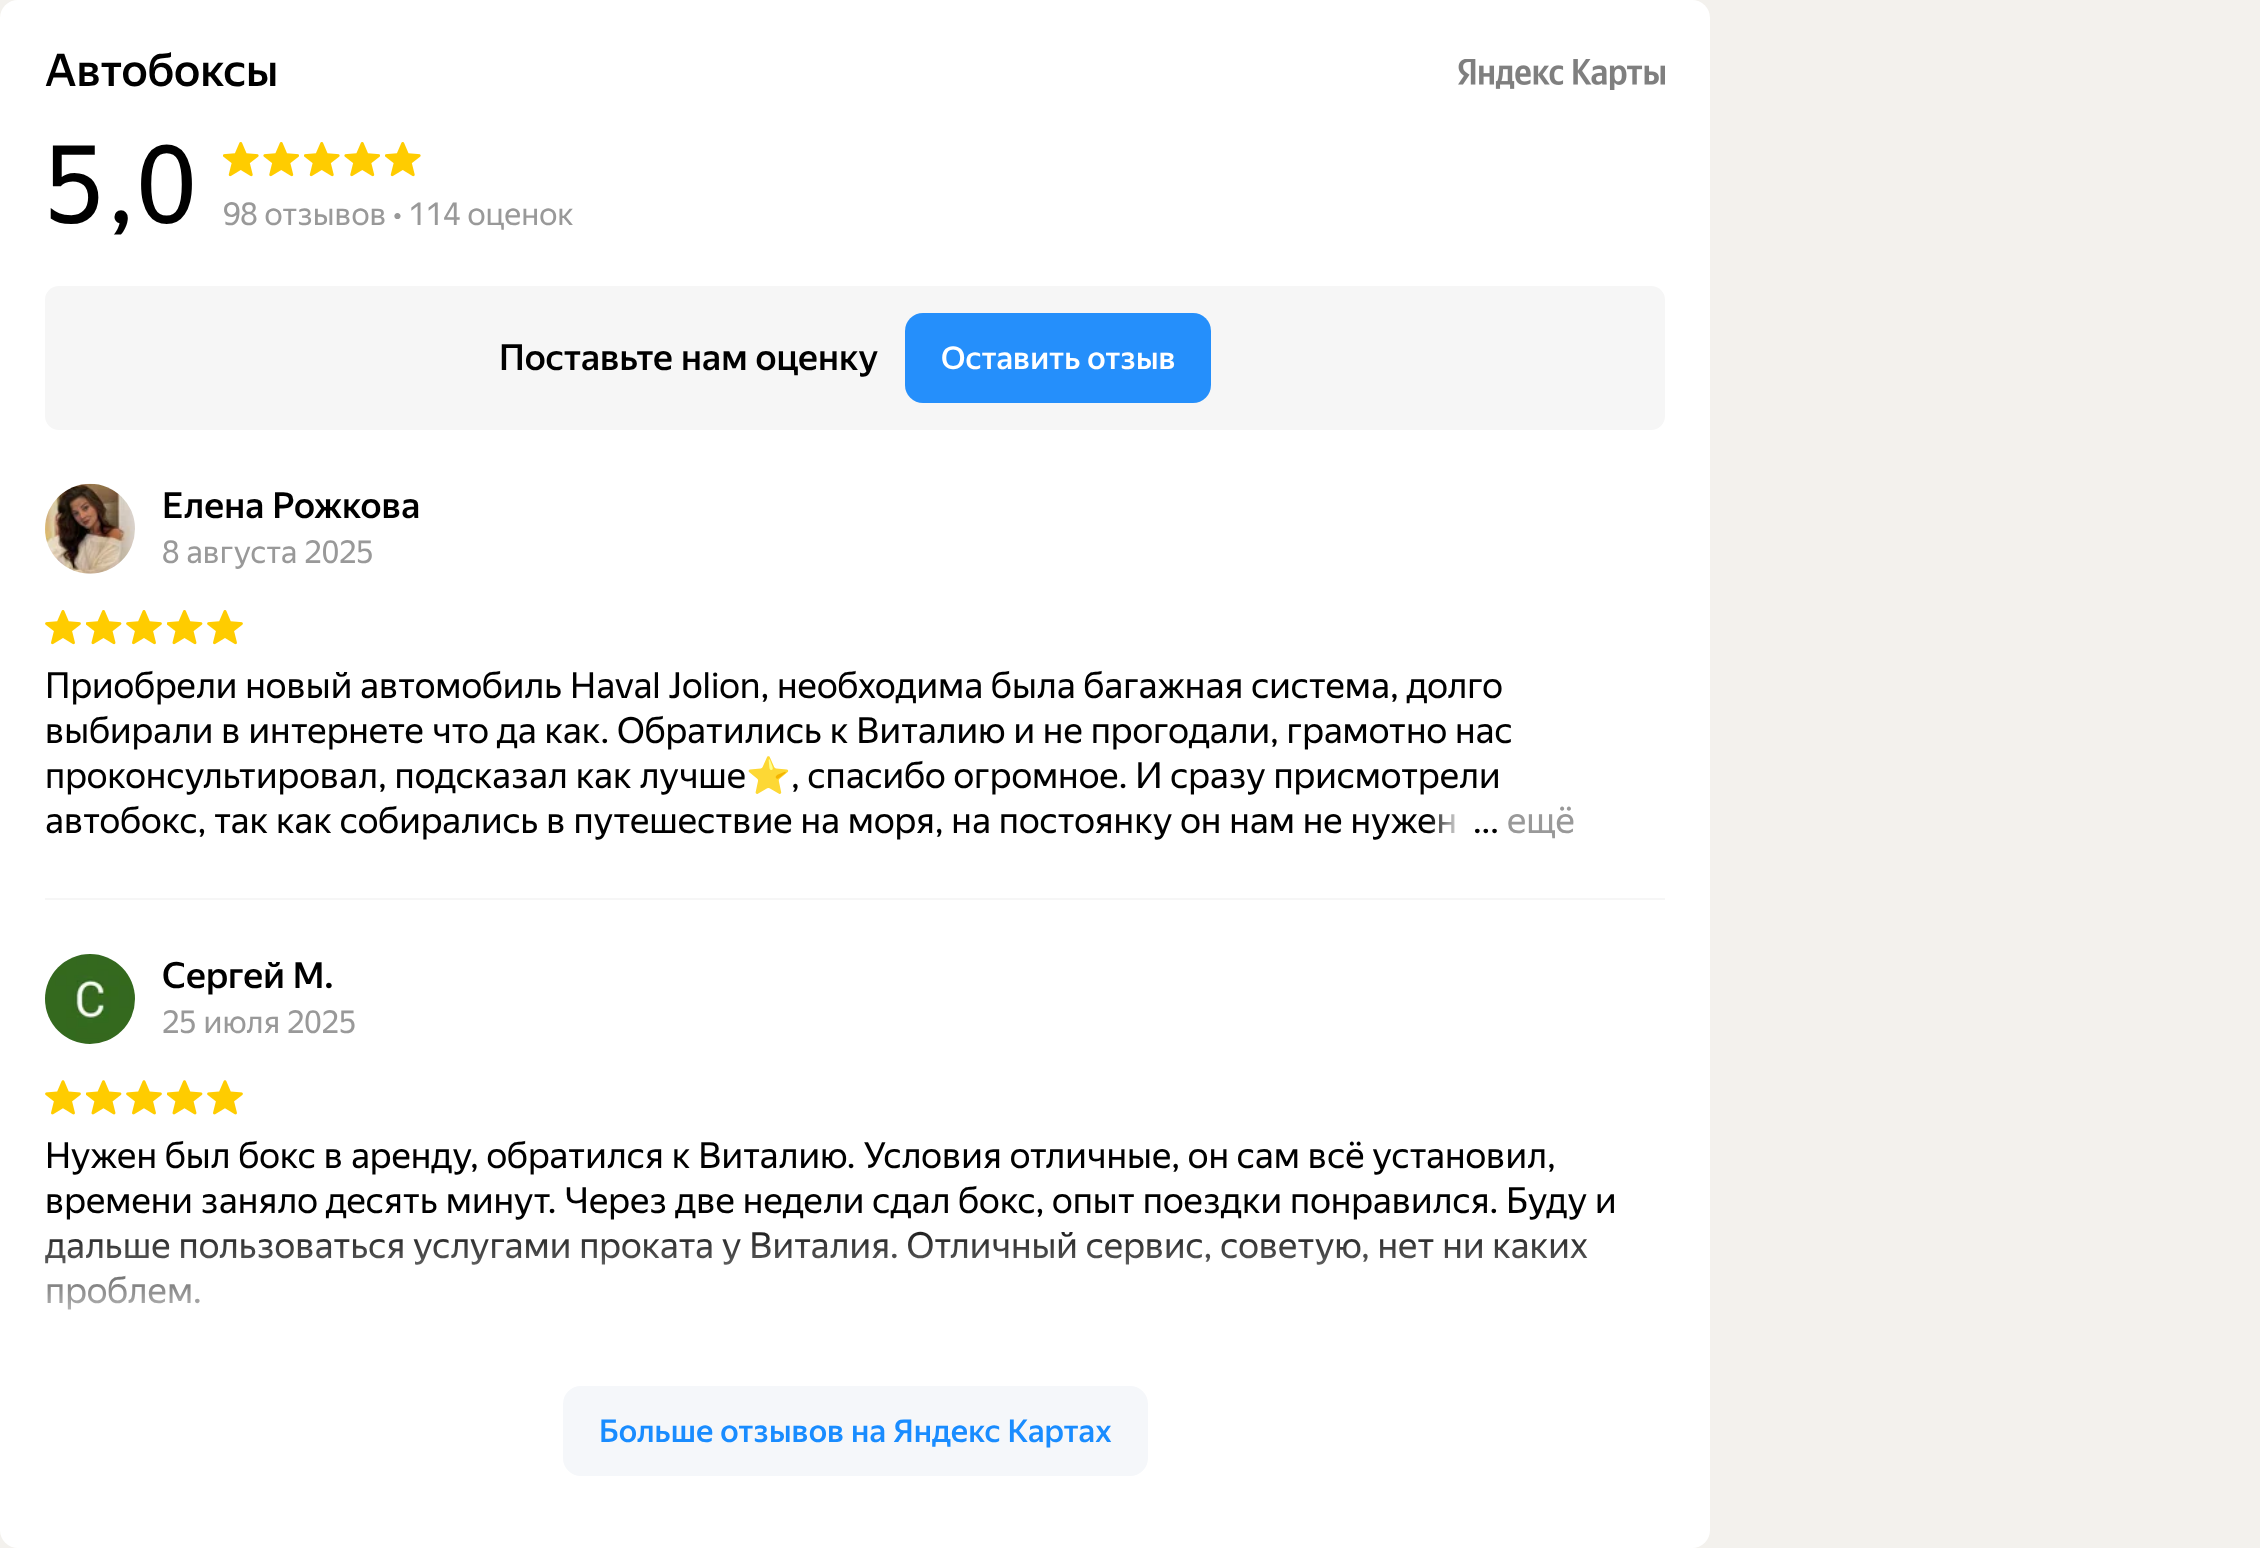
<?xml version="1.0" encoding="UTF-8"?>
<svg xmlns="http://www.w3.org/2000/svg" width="2260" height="1548">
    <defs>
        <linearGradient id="g1" gradientUnits="userSpaceOnUse" x1="1429" y1="821" x2="1665" y2="821"><stop offset="0" stop-color="#FFFFFF" stop-opacity="0"/><stop offset="0.14" stop-color="#FFFFFF"/></linearGradient>
        <linearGradient id="g2" gradientUnits="userSpaceOnUse" x1="855" y1="1215" x2="855" y2="1350"><stop offset="0" stop-color="#FFFFFF" stop-opacity="0"/><stop offset="1" stop-color="#FFFFFF"/></linearGradient>
    </defs>
    <rect width="100%" height="100%" fill="#F3F1ED"/>
    <rect x="0" y="0" width="1710" height="1548" rx="18" fill="#FFFFFF"/>
    <text x="45" y="86" font-family="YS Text" font-size="45" font-weight="500" fill="#000000">Автобоксы</text>
    <image x="1458" y="59" width="207" height="31" href="img_01.png"/>
    <text x="45" y="223" font-family="YS Text" font-size="108" fill="#000000">5,0</text>
    <image x="223" y="142" width="36" height="35" href="img_02.png"/>
    <image x="263" y="142" width="36" height="35" href="img_03.png"/>
    <image x="304" y="142" width="36" height="35" href="img_02.png"/>
    <image x="344" y="142" width="36" height="35" href="img_03.png"/>
    <image x="385" y="142" width="36" height="35" href="img_02.png"/>
    <text x="223" y="225" font-family="YS Text" font-size="31.5" fill="#999999">98 отзывов • 114 оценок</text>
    <rect x="45" y="286" width="1620" height="144" rx="14" fill="#F6F6F6"/>
    <text x="499" y="370" font-family="YS Text" font-size="36" font-weight="500" fill="#000000">Поставьте нам оценку</text>
    <rect x="905" y="313" width="306" height="90" rx="18" fill="#258FFB"/>
    <text x="941" y="369" font-family="YS Text" font-size="31.5" font-weight="500" fill="#FFFFFF">Оставить отзыв</text>
    <rect x="45" y="898" width="1620" height="2" fill="#F6F6F6"/>
    <image x="45" y="483" width="90" height="91" href="img_04.png"/>
    <text x="162" y="518" font-family="YS Text" font-size="36" font-weight="500" fill="#000000">Елена Рожкова</text>
    <text x="162" y="563" font-family="YS Text" font-size="31.5" fill="#999999">8 августа 2025</text>
    <image x="45" y="610" width="36" height="35" href="img_05.png"/>
    <image x="86" y="610" width="36" height="35" href="img_06.png"/>
    <image x="126" y="610" width="36" height="35" href="img_05.png"/>
    <image x="167" y="610" width="36" height="35" href="img_06.png"/>
    <image x="207" y="610" width="36" height="35" href="img_05.png"/>
    <text font-family="YS Text" font-size="36" fill="#000000">
        <tspan x="45" y="698">Приобрели новый автомобиль Haval Jolion, необходима была багажная система, долго</tspan>
        <tspan x="45" y="743">выбирали в интернете что да как. Обратились к Виталию и не прогодали, грамотно нас</tspan>
        <tspan x="45" y="788">проконсультировал, подсказал как лучше</tspan>
    </text>
    <text x="746" y="788" font-family="Noto Color Emoji" font-size="36" fill="#000000">⭐</text>
    <text x="791" y="788" font-family="YS Text" font-size="36" fill="#000000">, спасибо огромное. И сразу присмотрели</text>
    <text x="45" y="833" font-family="YS Text" font-size="36" fill="#000000">автобокс, так как собирались в путешествие на моря, на постоянку он нам не нужен</text>
    <rect x="1430" y="814" width="25" height="19" fill="url(#g1)"/>
    <text x="1473" y="833" font-family="YS Text" font-size="36" fill="#000000">...</text>
    <text x="1507" y="833" font-family="YS Text" font-size="36" fill="#999999">ещё</text>
    <image x="45" y="954" width="90" height="90" href="img_07.png"/>
    <text x="162" y="988" font-family="YS Text" font-size="36" font-weight="500" fill="#000000">Сергей М.</text>
    <text x="162" y="1033" font-family="YS Text" font-size="31.5" fill="#999999">25 июля 2025</text>
    <image x="45" y="1080" width="36" height="35" href="img_08.png"/>
    <image x="86" y="1080" width="36" height="35" href="img_09.png"/>
    <image x="126" y="1080" width="36" height="35" href="img_08.png"/>
    <image x="167" y="1080" width="36" height="35" href="img_09.png"/>
    <image x="207" y="1080" width="36" height="35" href="img_08.png"/>
    <text font-family="YS Text" font-size="36" fill="#000000">
        <tspan x="45" y="1168">Нужен был бокс в аренду, обратился к Виталию. Условия отличные, он сам всё установил,</tspan>
        <tspan x="45" y="1213">времени заняло десять минут. Через две недели сдал бокс, опыт поездки понравился. Буду и</tspan>
        <tspan x="45" y="1258">дальше пользоваться услугами проката у Виталия. Отличный сервис, советую, нет ни каких</tspan>
        <tspan x="45" y="1303">проблем.</tspan>
    </text>
    <rect x="45" y="1218" width="1543" height="92" fill="url(#g2)"/>
    <rect x="563" y="1386" width="585" height="90" rx="18" fill="#F5F7FA"/>
    <text x="599" y="1442" font-family="YS Text" font-size="31.5" font-weight="500" fill="#198CFF">Больше отзывов на Яндекс Картах</text>
</svg>
